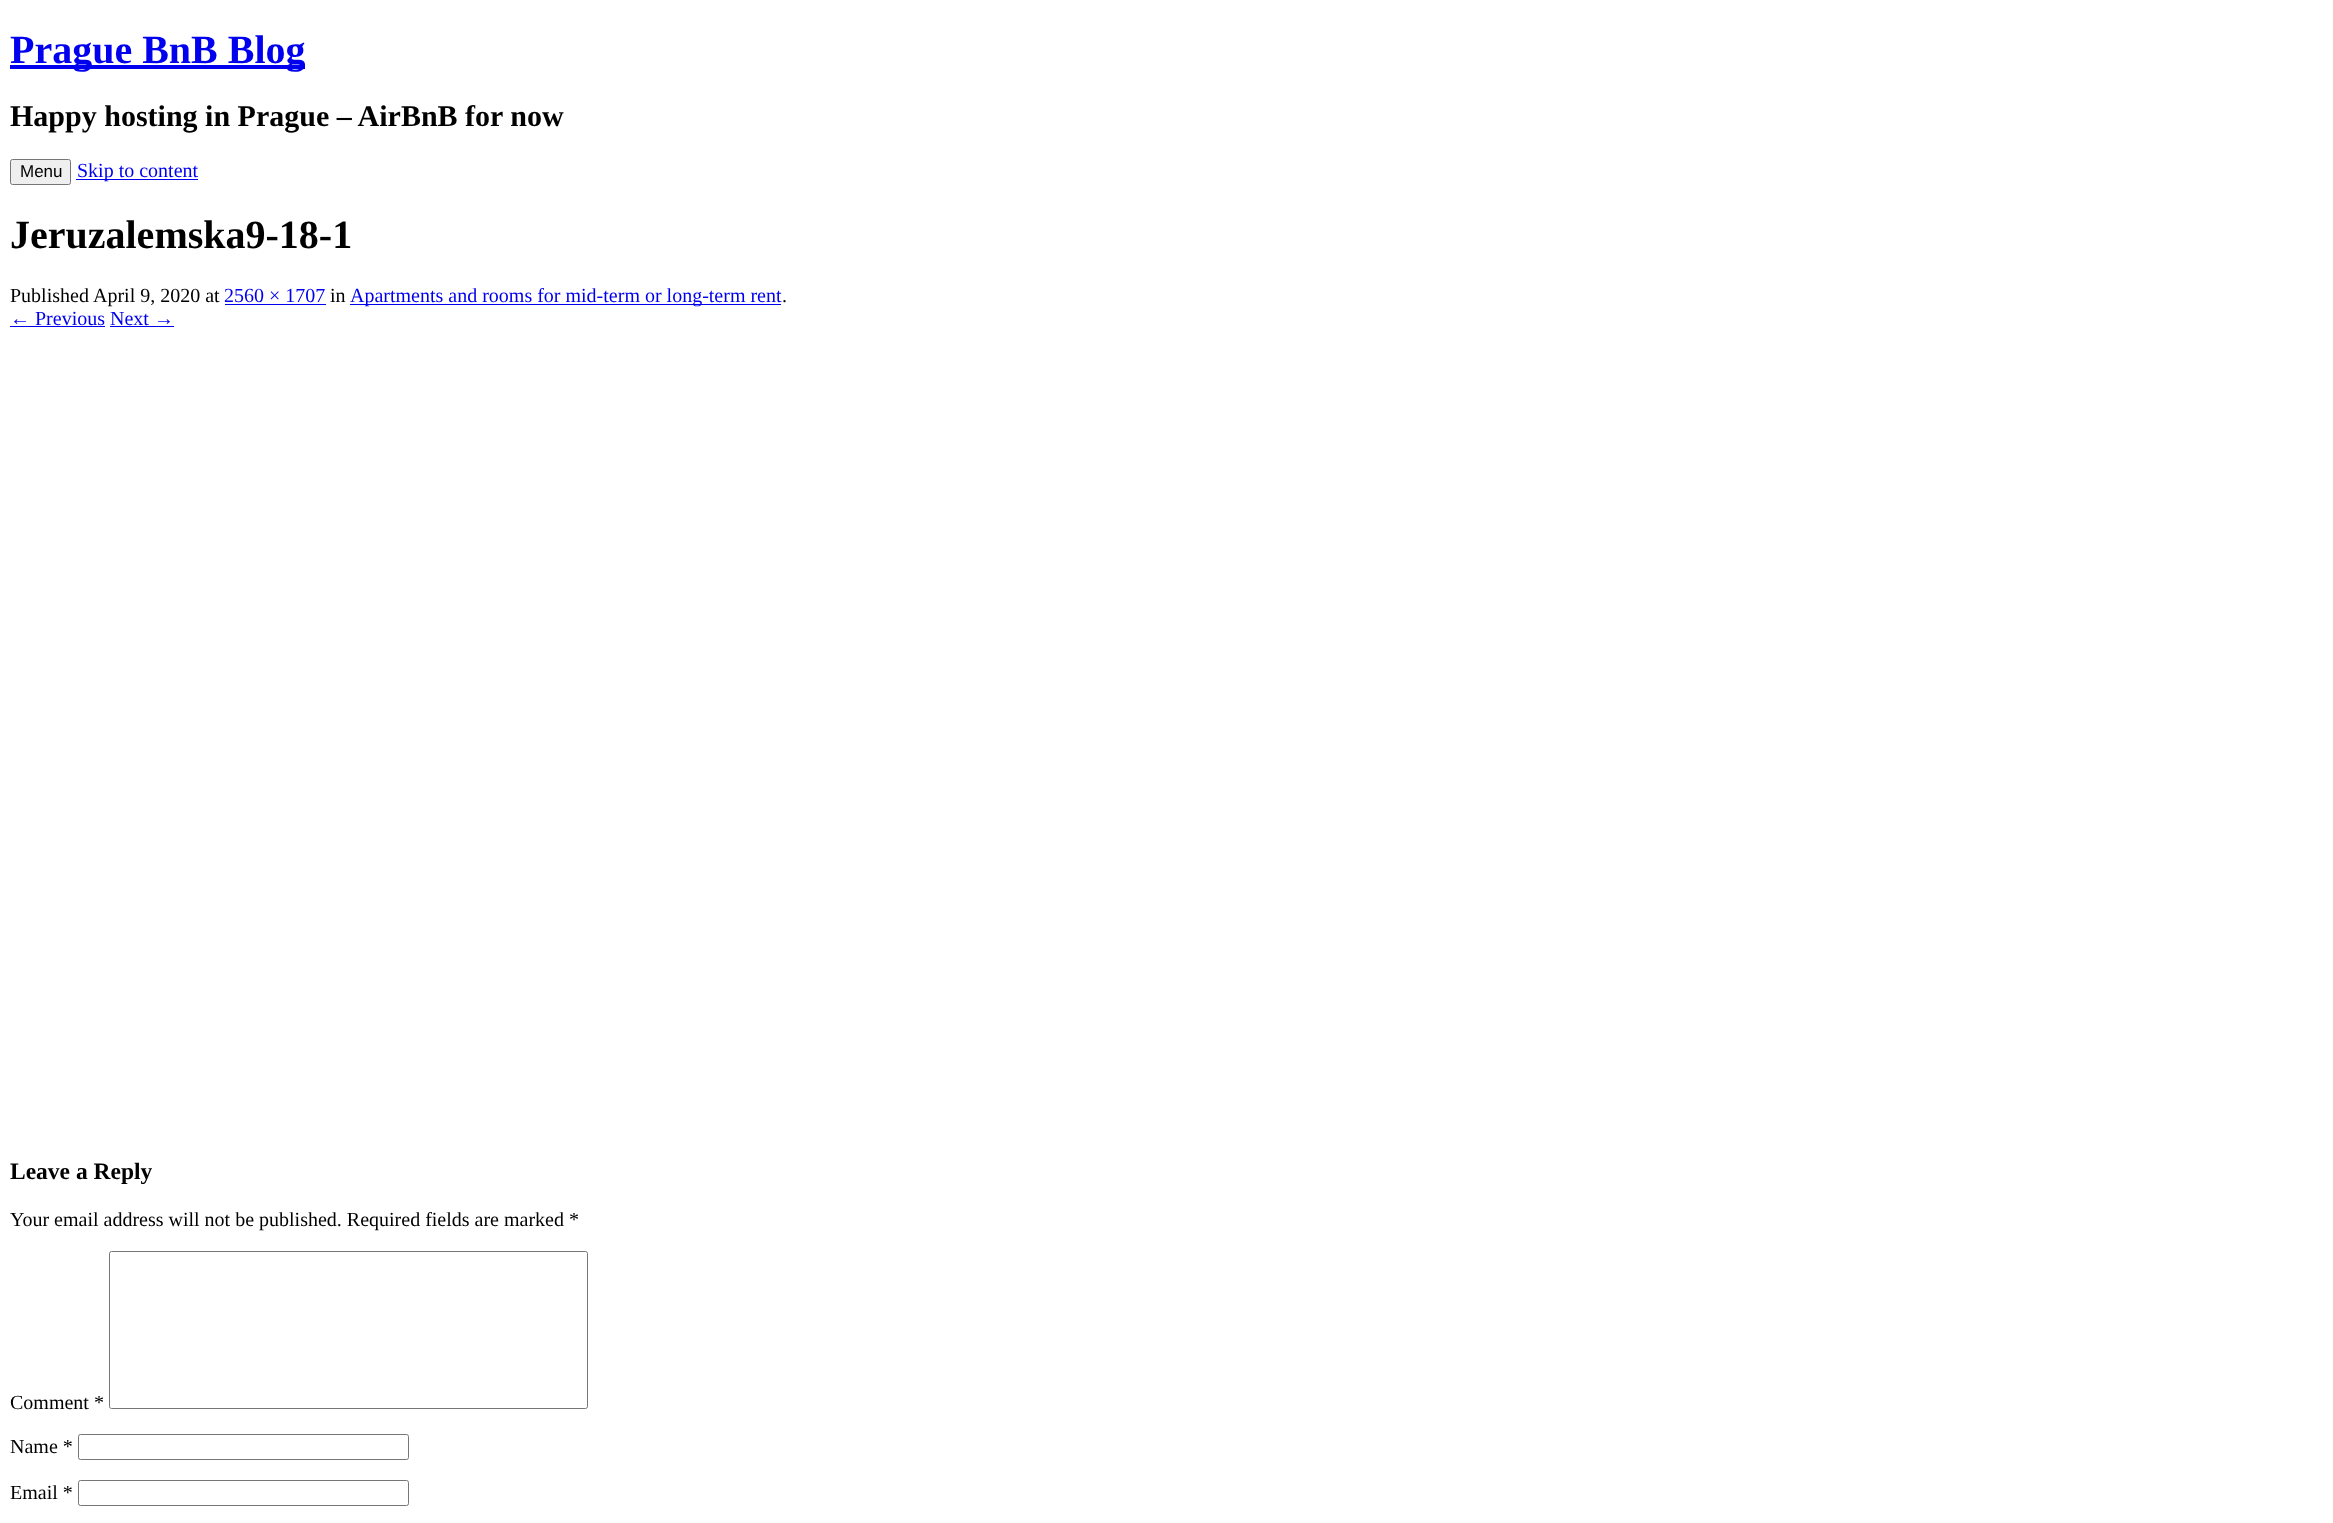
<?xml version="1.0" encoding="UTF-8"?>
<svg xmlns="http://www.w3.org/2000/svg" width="2333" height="1523">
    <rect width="100%" height="100%" fill="#FFFFFF"/>
    <rect x="10" y="65" width="295" height="4" fill="#0000EE"/>
    <text x="10" y="63" font-family="Liberation Serif" font-size="40" font-weight="700" fill="#0000EE">Prague BnB Blog</text>
    <text x="10" y="126" font-family="Liberation Serif" font-size="30" font-weight="700" fill="#000000">Happy hosting in Prague – AirBnB for now</text>
    <rect x="10.5" y="159.5" width="60" height="25" rx="2" fill="#EFEFEF" stroke="#767676"/>
    <text x="20" y="177" font-family="Liberation Sans" font-size="17" fill="#000000">Menu</text>
    <rect x="76" y="179" width="122" height="1" fill="#0000EE"/>
    <text x="77" y="177" font-family="Liberation Serif" font-size="20" fill="#0000EE">Skip to content</text>
    <text x="10" y="248" font-family="Liberation Serif" font-size="40" font-weight="700" fill="#000000">Jeruzalemska9-18-1</text>
    <text x="10" y="302" font-family="Liberation Serif" font-size="20" fill="#000000">Published</text>
    <text x="93" y="302" font-family="Liberation Serif" font-size="20" fill="#000000">April 9, 2020 at</text>
    <text x="224" y="302" font-family="Liberation Serif" font-size="20" fill="#0000EE">2560 × 1707</text>
    <rect x="225" y="304" width="101" height="1" fill="#0000EE"/>
    <text x="330" y="302" font-family="Liberation Serif" font-size="20" fill="#000000">in</text>
    <rect x="350" y="304" width="431" height="1" fill="#0000EE"/>
    <text x="350" y="302" font-family="Liberation Serif" font-size="20" fill="#0000EE">Apartments and rooms for mid-term or long-term rent</text>
    <text x="782" y="302" font-family="Liberation Serif" font-size="20" fill="#000000">.</text>
    <text x="10" y="325" font-family="Liberation Serif" font-size="20" fill="#0000EE">← Previous Next →</text>
    <rect x="10" y="326" width="95" height="1" fill="#0000EE"/>
    <rect x="110" y="326" width="64" height="1" fill="#0000EE"/>
    <text x="10" y="1179" font-family="Liberation Serif" font-size="23.5" font-weight="700" fill="#000000">Leave a Reply</text>
    <text x="10" y="1226" font-family="Liberation Serif" font-size="20" fill="#000000">Your email address will not be published. Required fields are marked *</text>
    <text x="10" y="1409" font-family="Liberation Serif" font-size="20" fill="#000000">Comment *</text>
    <rect x="109.5" y="1251.5" width="478" height="157" rx="2" fill="none" stroke="#767676"/>
    <text x="10" y="1453" font-family="Liberation Serif" font-size="20" fill="#000000">Name *</text>
    <rect x="78.5" y="1434.5" width="330" height="25" rx="2" fill="none" stroke="#767676"/>
    <text x="10" y="1499" font-family="Liberation Serif" font-size="20" fill="#000000">Email *</text>
    <rect x="78.5" y="1480.5" width="330" height="25" rx="2" fill="none" stroke="#767676"/>
</svg>
